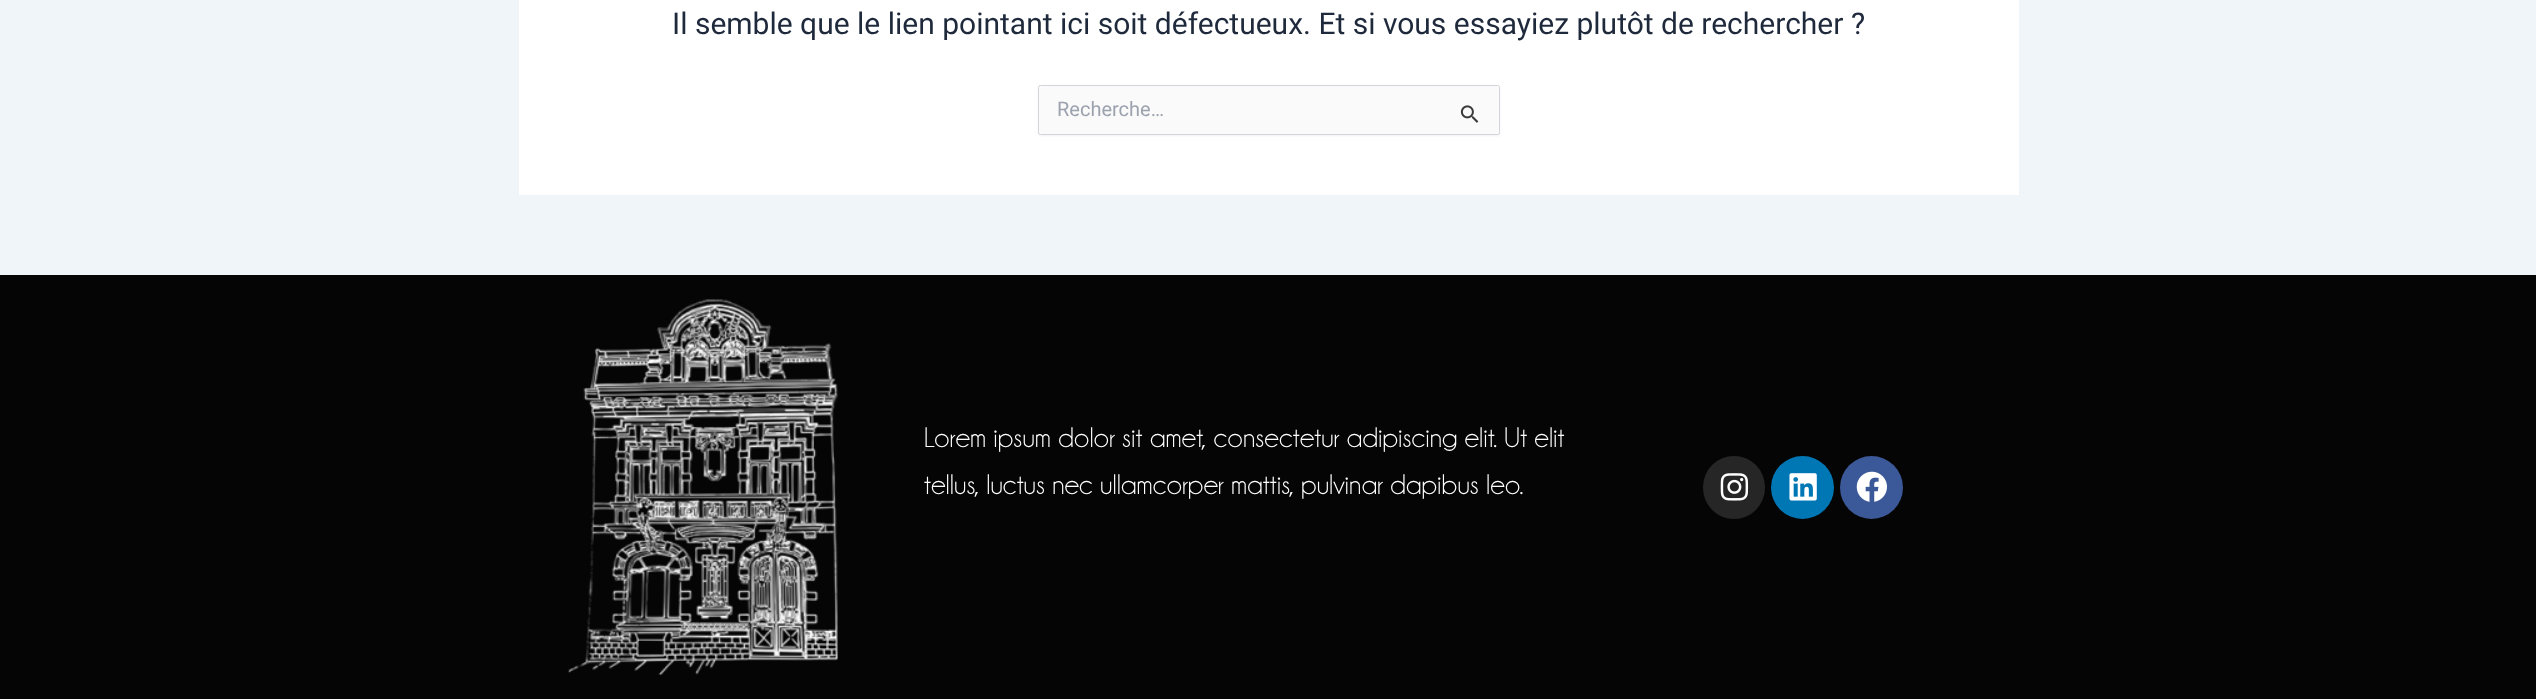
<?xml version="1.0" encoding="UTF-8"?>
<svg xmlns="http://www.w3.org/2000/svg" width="2536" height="699">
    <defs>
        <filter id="blur1" x="-50%" y="-200%" width="200%" height="500%"><feGaussianBlur stdDeviation="1"/></filter>
    </defs>
    <rect width="100%" height="100%" fill="#F0F5FA"/>
    <rect x="519" y="0" width="1500" height="195" fill="#FFFFFF"/>
    <text x="672" y="34" font-family="Roboto" font-size="30" fill="#1E293B">Il semble que le lien pointant ici soit défectueux. Et si vous essayiez plutôt de rechercher ?</text>
    <rect x="1038" y="86" width="462" height="50" rx="2.5" fill="#000000" fill-opacity="0.05" filter="url(#blur1)"/>
    <rect x="1038.5" y="85.5" width="461" height="49" rx="2" fill="#FAFAFA" stroke="#D1D5DB"/>
    <text x="1057" y="116" font-family="Roboto" font-size="20" fill="#9CA3AF">Recherche…</text>
    <image x="1460" y="105" width="19" height="18" href="img_01.png"/>
    <rect x="0" y="275" width="2536" height="424" fill="#050505"/>
    <image x="568" y="299" width="270" height="376" href="img_02.png"/>
    <text font-family="'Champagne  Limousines'" font-size="28.75" fill="#FFFFFF">
        <tspan x="924" y="447">Lorem ipsum dolor sit amet, consectetur adipiscing elit. Ut elit</tspan>
        <tspan x="924" y="494">tellus, luctus nec ullamcorper mattis, pulvinar dapibus leo.</tspan>
    </text>
    <rect x="1703" y="456" width="62" height="63" rx="31" fill="#262626"/>
    <image x="1720" y="473" width="29" height="28" href="img_03.png"/>
    <circle cx="1802.5" cy="487.5" r="31.5" fill="#0077B5"/>
    <image x="1789" y="473" width="28" height="28" href="img_04.png"/>
    <circle cx="1871.5" cy="487.5" r="31.5" fill="#3B5998"/>
    <image x="1856" y="471" width="31" height="31" href="img_05.png"/>
</svg>
